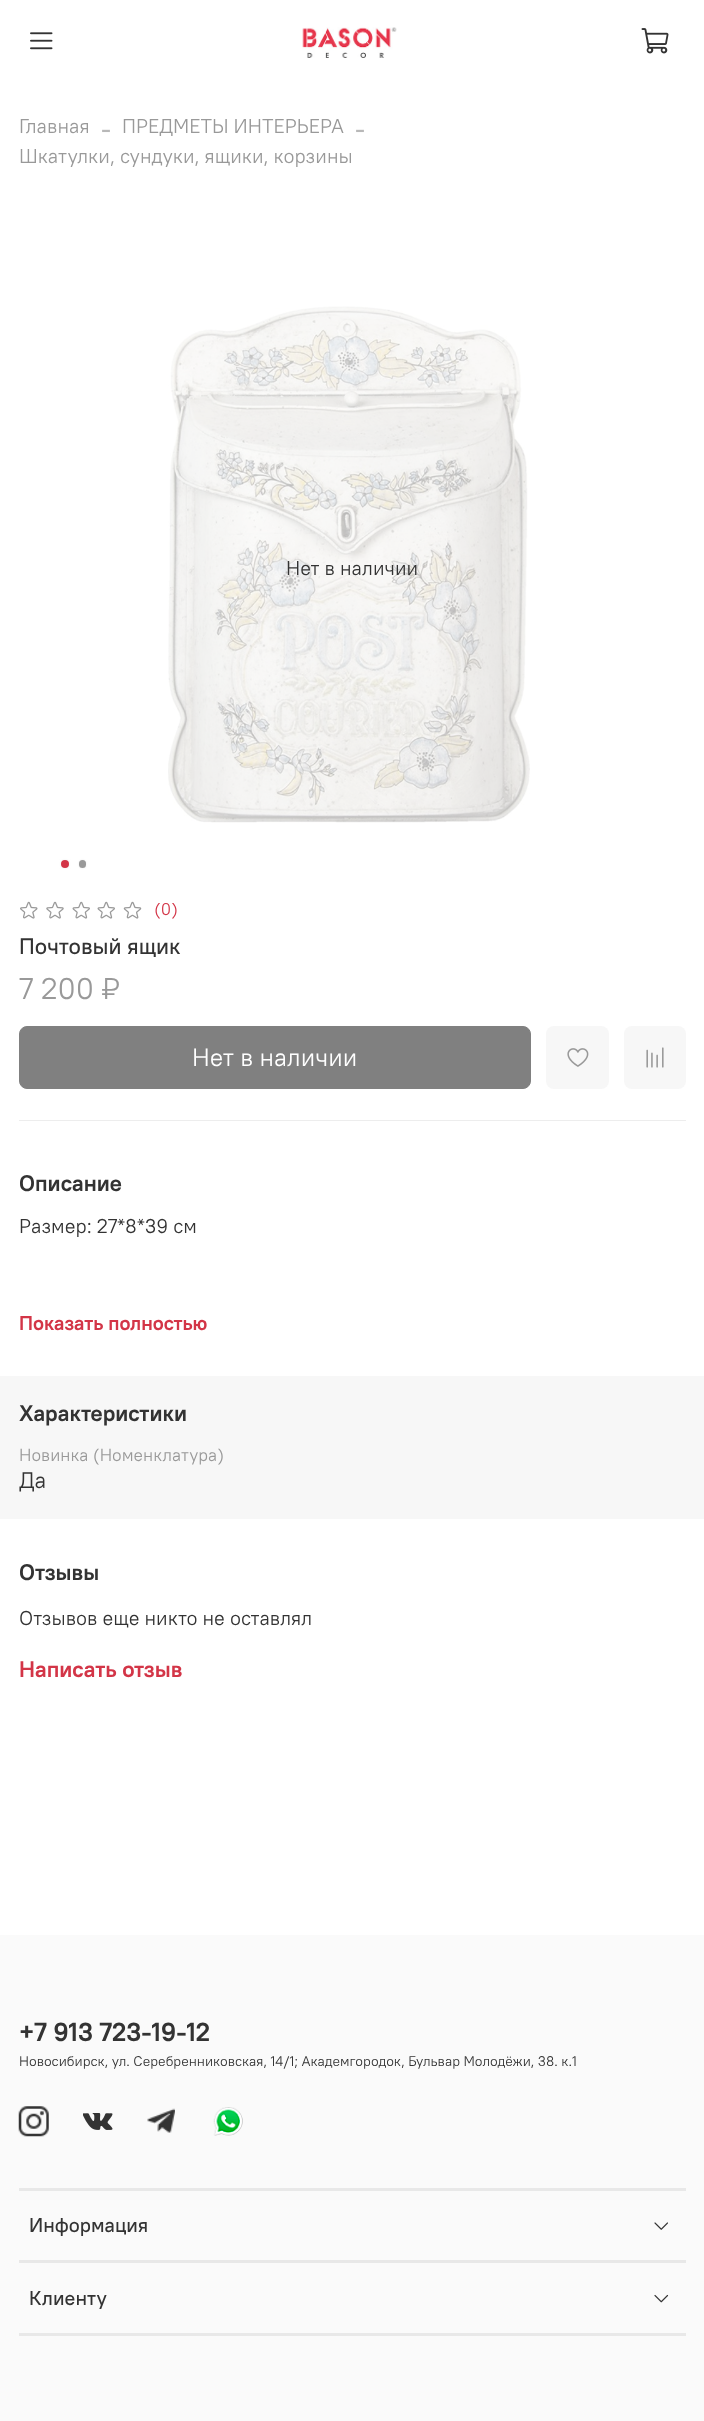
<?xml version="1.0" encoding="UTF-8"?>
<svg xmlns="http://www.w3.org/2000/svg" width="704" height="2421">
    <defs>
        <filter id="blur1" x="-50%" y="-200%" width="200%" height="500%"><feGaussianBlur stdDeviation="1"/></filter>
    </defs>
    <rect width="100%" height="100%" fill="#FFFFFF"/>
    <image x="30" y="32" width="23" height="18" href="img_01.png"/>
    <image x="302" y="27" width="95" height="31" href="img_02.png"/>
    <image x="641" y="28" width="28" height="26" href="img_03.png"/>
    <text x="19" y="133" font-family="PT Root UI" font-size="20" fill="#999999">Главная</text>
    <text x="101" y="138" font-family="Liberation Serif" font-size="30" fill="#B8B8B8">-</text>
    <text x="122" y="133" font-family="PT Root UI" font-size="20" fill="#999999">ПРЕДМЕТЫ ИНТЕРЬЕРА</text>
    <text x="355" y="138" font-family="Liberation Serif" font-size="30" fill="#B8B8B8">-</text>
    <text x="19" y="163" font-family="PT Root UI" font-size="20" fill="#999999">Шкатулки, сундуки, ящики, корзины</text>
    <image x="168" y="306" width="362" height="517" href="img_04.png"/>
    <rect x="61" y="860" width="8" height="8" rx="4" fill="#EDEDED" filter="url(#blur1)"/>
    <circle cx="65" cy="864" r="4" fill="#D33547"/>
    <rect x="79" y="860" width="7" height="8" rx="3.5" fill="#EDEDED" filter="url(#blur1)"/>
    <rect x="79" y="860" width="7" height="8" rx="3.5" fill="#999999"/>
    <text x="286" y="575" font-family="PT Root UI" font-size="20" fill="#333333">Нет в наличии</text>
    <image x="20" y="901" width="18" height="18" href="img_05.png"/>
    <image x="46" y="901" width="18" height="18" href="img_06.png"/>
    <image x="72" y="901" width="18" height="18" href="img_07.png"/>
    <image x="97" y="901" width="18" height="18" href="img_07.png"/>
    <image x="123" y="901" width="19" height="18" href="img_08.png"/>
    <text x="154" y="915" font-family="PT Root UI" font-size="17" fill="#D33547">(0)</text>
    <text x="19" y="954" font-family="PT Root UI" font-size="22.5" font-weight="500" fill="#333333">Почтовый ящик</text>
    <text x="19" y="999" font-family="PT Root UI" font-size="30" fill="#999999">7 200 ₽</text>
    <rect x="19.5" y="1026.5" width="511" height="62" rx="7.5" fill="#808080" stroke="#808080"/>
    <text x="192" y="1066" font-family="PT Root UI" font-size="25" fill="#FFFFFF">Нет в наличии</text>
    <rect x="546" y="1026" width="63" height="63" rx="8" fill="#F7F7F7"/>
    <image x="567" y="1048" width="22" height="19" href="img_09.png"/>
    <rect x="624" y="1026" width="62" height="63" rx="8" fill="#F7F7F7"/>
    <image x="646" y="1047" width="18" height="21" href="img_10.png"/>
    <rect x="19" y="1120" width="667" height="1" fill="#EDEDED"/>
    <text x="19" y="1191" font-family="PT Root UI" font-size="22.5" font-weight="700" fill="#333333">Описание</text>
    <text x="19" y="1233" font-family="PT Root UI" font-size="20" fill="#333333">Размер: 27*8*39 см</text>
    <text x="19" y="1330" font-family="PT Root UI" font-size="20" font-weight="700" fill="#D33547">Показать полностью</text>
    <rect x="0" y="1376" width="704" height="143" fill="#F7F7F7"/>
    <text x="19" y="1421" font-family="PT Root UI" font-size="22.5" font-weight="700" fill="#333333">Характеристики</text>
    <text x="19" y="1461" font-family="PT Root UI" font-size="17.5" fill="#999999">Новинка (Номенклатура)</text>
    <text x="19" y="1488" font-family="PT Root UI" font-size="22.5" fill="#333333">Да</text>
    <text x="19" y="1580" font-family="PT Root UI" font-size="22.5" font-weight="700" fill="#333333">Отзывы</text>
    <text x="19" y="1625" font-family="PT Root UI" font-size="20" fill="#333333">Отзывов еще никто не оставлял</text>
    <text x="19" y="1677" font-family="PT Root UI" font-size="22.5" font-weight="700" fill="#D33547">Написать отзыв</text>
    <rect x="0" y="1935" width="704" height="486" fill="#FAFAFA"/>
    <text x="19" y="2041" font-family="PT Root UI" font-size="26" font-weight="700" fill="#333333">+7 913 723-19-12</text>
    <text x="19" y="2066" font-family="PT Root UI" font-size="14" fill="#333333">Новосибирск, ул. Серебренниковская, 14/1; Академгородок, Бульвар Молодёжи, 38. к.1</text>
    <image x="18" y="2106" width="31" height="31" href="img_11.png"/>
    <image x="83" y="2113" width="30" height="17" href="img_12.png"/>
    <image x="147" y="2108" width="28" height="25" href="img_13.png"/>
    <image x="213" y="2107" width="30" height="29" href="img_14.png"/>
    <rect x="19" y="2188" width="667" height="3" fill="#E8E8E8"/>
    <text x="29" y="2232" font-family="PT Root UI" font-size="20" font-weight="500" fill="#333333">Информация</text>
    <image x="654" y="2222" width="14" height="8" href="img_15.png"/>
    <rect x="19" y="2260" width="667" height="3" fill="#E8E8E8"/>
    <rect x="19" y="2333" width="667" height="3" fill="#E8E8E8"/>
    <text x="29" y="2305" font-family="PT Root UI" font-size="20" font-weight="500" fill="#333333">Клиенту</text>
    <image x="654" y="2294" width="15" height="9" href="img_16.png"/>
</svg>
